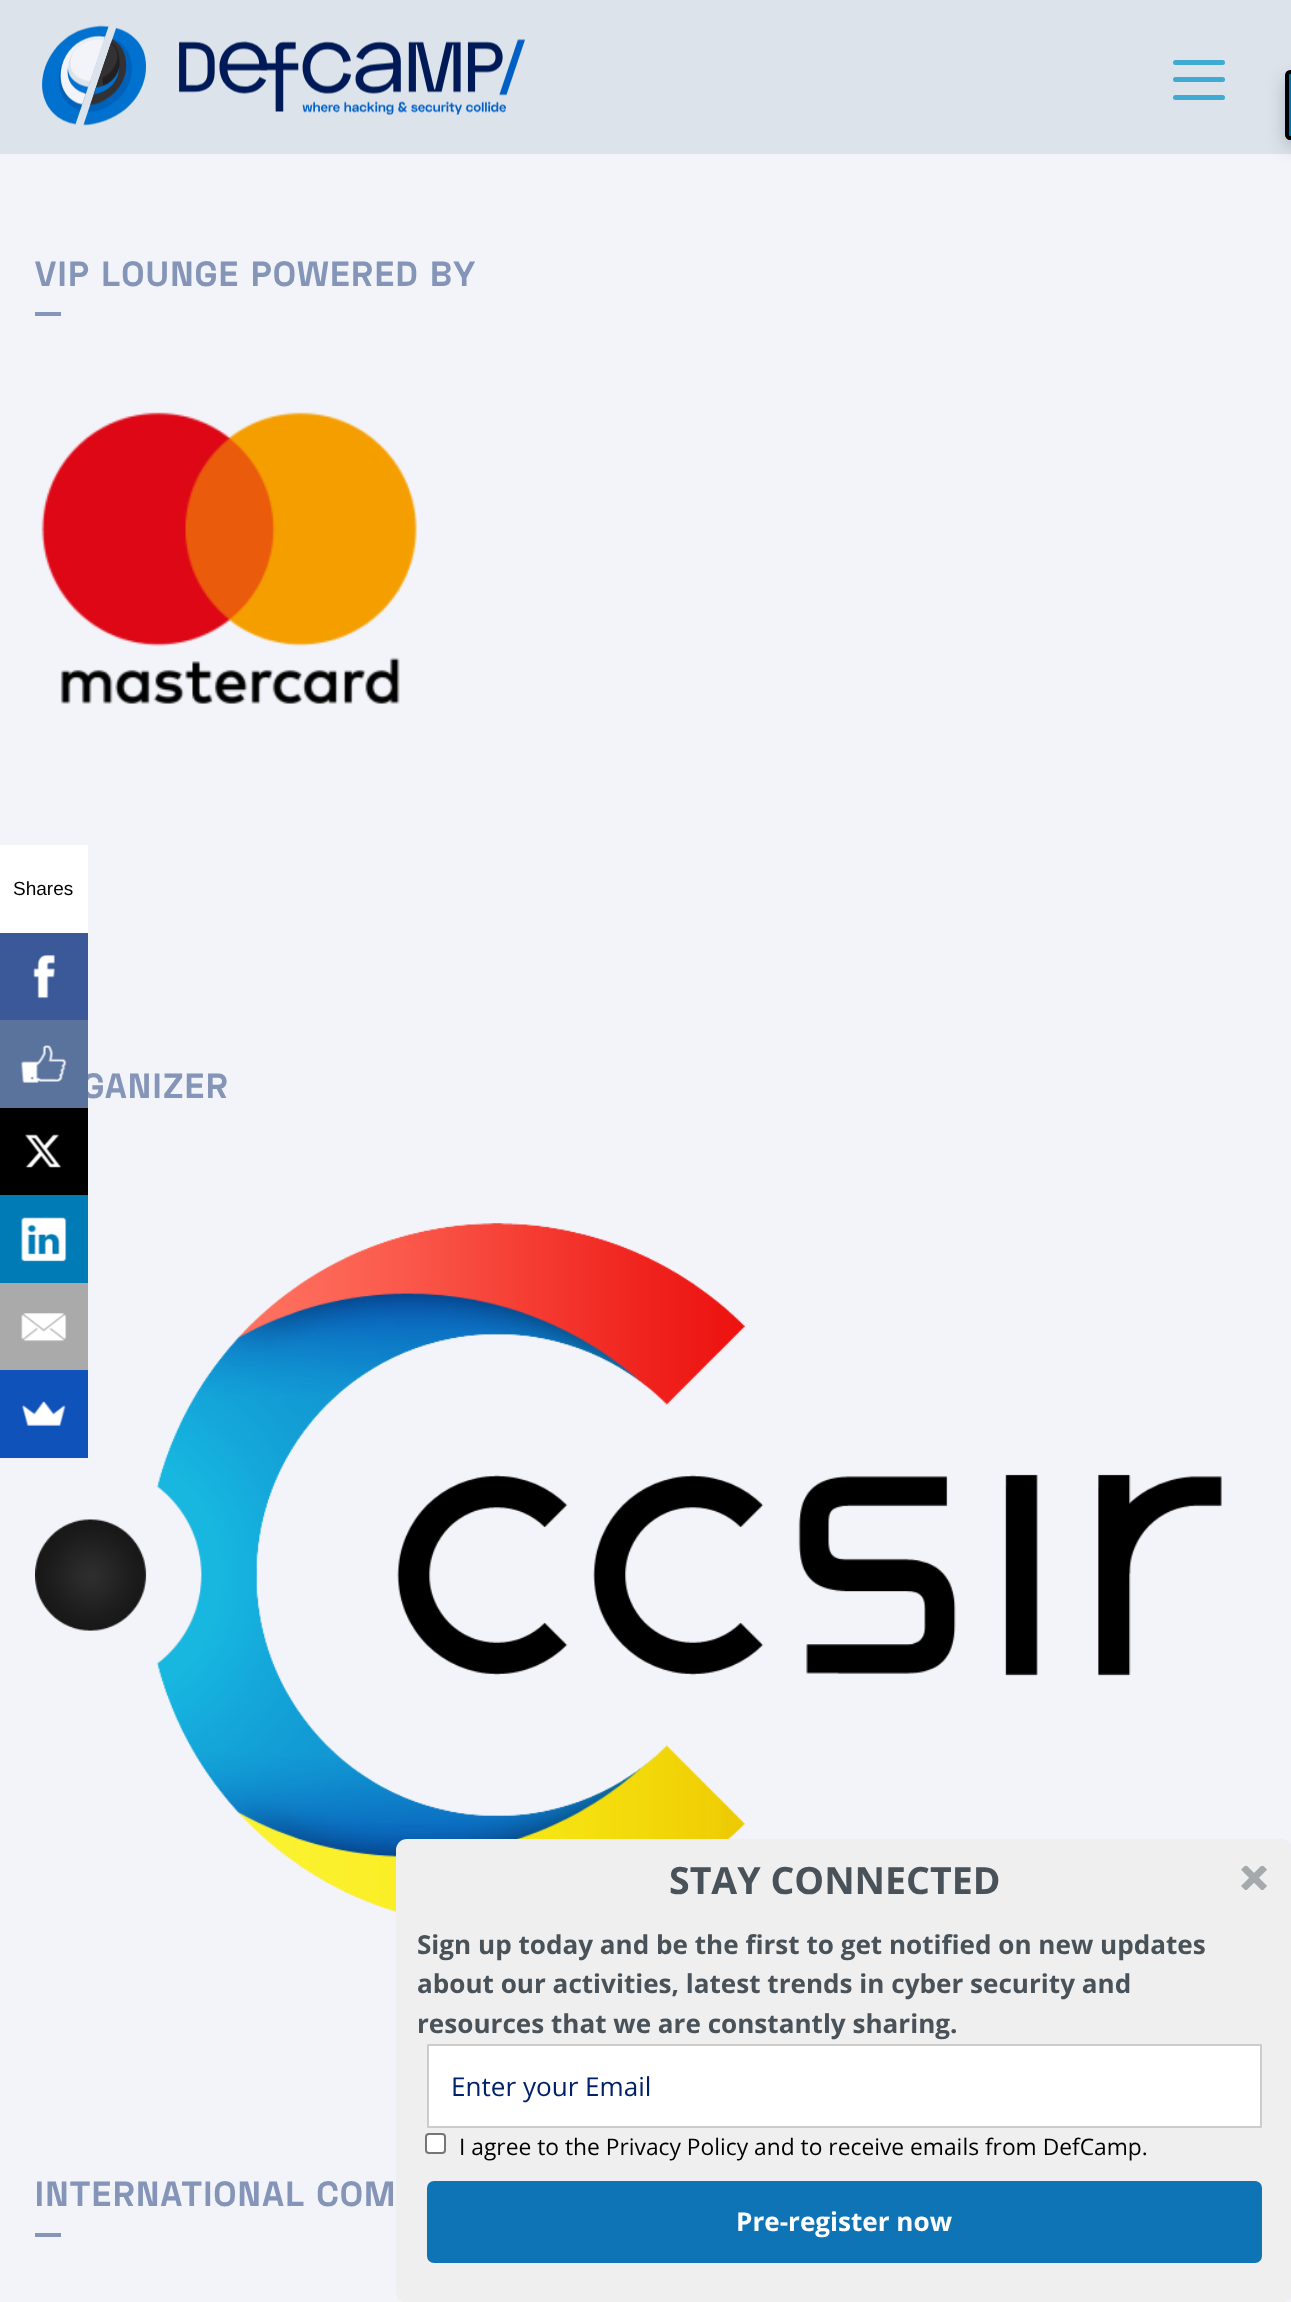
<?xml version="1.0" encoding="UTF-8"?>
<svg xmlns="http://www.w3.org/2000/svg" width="1291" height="2302">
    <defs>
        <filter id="blur1" x="-50%" y="-200%" width="200%" height="500%"><feGaussianBlur stdDeviation="9"/></filter>
    </defs>
    <rect width="100%" height="100%" fill="#F3F4F9"/>
    <rect x="0" y="0" width="1291" height="154" fill="#DCE3EB"/>
    <image x="42" y="25" width="483" height="101" href="img_01.png"/>
    <rect x="1173" y="60" width="52" height="5" rx="2.5" fill="#3FABD3"/>
    <rect x="1173" y="77" width="52" height="5" rx="2.5" fill="#3FABD3"/>
    <rect x="1173" y="95" width="52" height="5" rx="2.5" fill="#3FABD3"/>
    <rect x="1285" y="77" width="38" height="70" rx="5" fill="#000000" fill-opacity="0.2" filter="url(#blur1)"/>
    <path d="M 1290 72 H 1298 V 138 H 1290 C 1288.5 138 1287 136.5 1287 135 V 75 C 1287 73.5 1288.5 72 1290 72 Z" fill="#0073B7" stroke="#000000" stroke-width="4"/>
    <text x="35" y="286" font-family="Space Grotesk" font-size="35" font-weight="700" letter-spacing="1.75" fill="#8495B7">VIP LOUNGE POWERED BY</text>
    <rect x="35" y="312" width="26" height="4" fill="#8495B7"/>
    <image x="41" y="412" width="376" height="292" href="img_02.png"/>
    <text x="82" y="1098" font-family="Space Grotesk" font-size="35" font-weight="700" letter-spacing="1.75" fill="#8495B7">GANIZER</text>
    <image x="35" y="1223" width="1187" height="690" href="img_03.png"/>
    <text x="35" y="2206" font-family="Space Grotesk" font-size="35" font-weight="700" letter-spacing="1.75" fill="#8495B7">INTERNATIONAL COM</text>
    <rect x="35" y="2233" width="26" height="4" fill="#8495B7"/>
    <rect x="0" y="845" width="88" height="88" fill="#FFFFFF"/>
    <text x="13" y="895" font-family="Liberation Sans" font-size="19" fill="#000000">Shares</text>
    <rect x="0" y="933" width="88" height="87" fill="#3B5998"/>
    <image x="33" y="955" width="22" height="44" href="img_04.png"/>
    <rect x="0" y="1020" width="88" height="88" fill="#5A739D"/>
    <image x="21" y="1045" width="46" height="38" href="img_05.png"/>
    <rect x="0" y="1108" width="88" height="87" fill="#000000"/>
    <image x="25" y="1134" width="36" height="34" href="img_06.png"/>
    <rect x="0" y="1195" width="88" height="88" fill="#007BB6"/>
    <image x="21" y="1217" width="46" height="45" href="img_07.png"/>
    <rect x="0" y="1283" width="88" height="87" fill="#AAAAAA"/>
    <image x="21" y="1313" width="46" height="29" href="img_08.png"/>
    <rect x="0" y="1370" width="88" height="88" fill="#0F52BA"/>
    <image x="22" y="1401" width="44" height="25" href="img_09.png"/>
    <rect x="396" y="1839" width="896" height="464" rx="11" fill="#EFEFEF"/>
    <text x="669" y="1894" font-family="Open Sans" font-size="37.5" font-weight="700" fill="#495259">STAY CONNECTED</text>
    <image x="1241" y="1866" width="26" height="24" href="img_10.png"/>
    <text font-family="Open Sans" font-size="26.1" font-weight="700" fill="#495259">
        <tspan x="417" y="1954">Sign up today and be the first to get notified on new updates</tspan>
        <tspan x="417" y="1993">about our activities, latest trends in cyber security and</tspan>
        <tspan x="417" y="2033">resources that we are constantly sharing.</tspan>
    </text>
    <rect x="428" y="2045" width="833" height="82" fill="#FFFFFF" stroke="#CCCCCC" stroke-width="2"/>
    <text x="451" y="2096" font-family="Open Sans" font-size="26.1" fill="#002169">Enter your Email</text>
    <rect x="426" y="2134" width="19" height="19" rx="3" fill="#FFFFFF" stroke="#767676" stroke-width="2"/>
    <text x="459" y="2155" font-family="Open Sans" font-size="22.8" fill="#000000">I agree to the Privacy Policy and to receive emails from DefCamp.</text>
    <rect x="427" y="2181" width="835" height="82" rx="7" fill="#0F74B5"/>
    <text x="736" y="2231" font-family="Open Sans" font-size="26.1" font-weight="700" fill="#FFFFFF">Pre-register now</text>
</svg>
